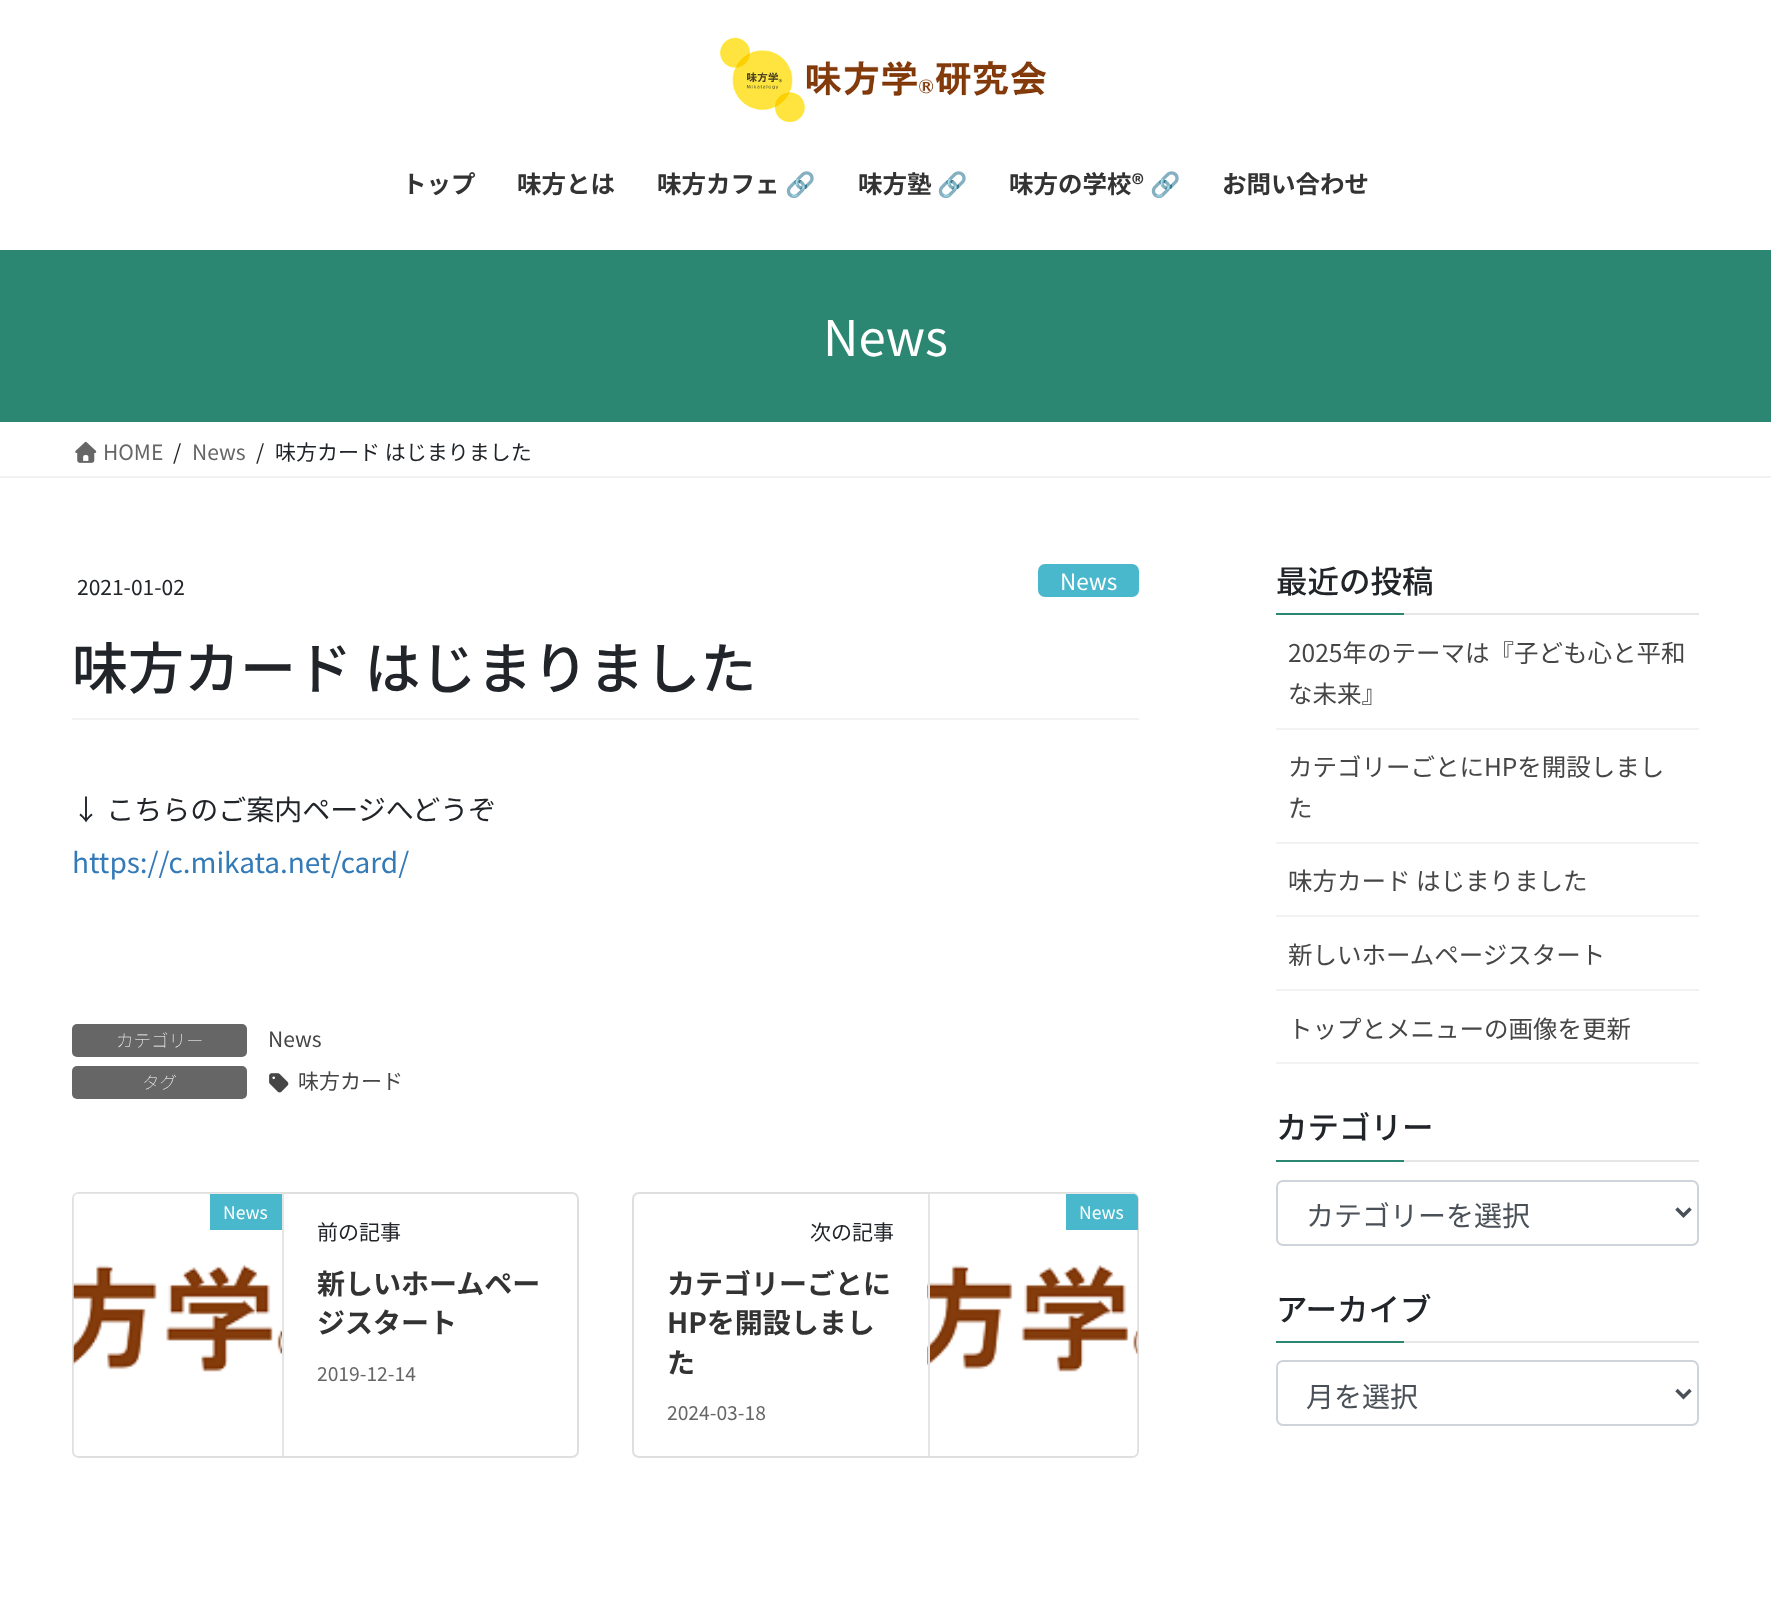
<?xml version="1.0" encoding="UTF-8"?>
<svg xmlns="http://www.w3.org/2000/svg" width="1771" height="1606">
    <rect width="100%" height="100%" fill="#FFFFFF"/>
    <image x="720" y="37" width="326" height="85" href="img_01.png"/>
    <text x="402" y="193" font-family="Noto Sans JP" font-size="24.5" font-weight="700" fill="#333333">トップ</text>
    <text x="517" y="193" font-family="Noto Sans JP" font-size="24.5" font-weight="700" fill="#333333">味方とは</text>
    <text x="657" y="193" font-family="Noto Sans JP" font-size="24.5" font-weight="700" fill="#333333">味方カフェ</text>
    <text x="785" y="193" font-family="Noto Color Emoji" font-size="24.5" font-weight="700" fill="#333333">🔗</text>
    <text x="858" y="193" font-family="Noto Sans JP" font-size="24.5" font-weight="700" fill="#333333">味方塾</text>
    <text x="937" y="193" font-family="Noto Color Emoji" font-size="24.5" font-weight="700" fill="#333333">🔗</text>
    <text x="1009" y="193" font-family="Noto Sans JP" font-size="24.5" font-weight="700" fill="#333333">味方の学校®</text>
    <text x="1150" y="193" font-family="Noto Color Emoji" font-size="24.5" font-weight="700" fill="#333333">🔗</text>
    <text x="1222" y="193" font-family="Noto Sans JP" font-size="24.5" font-weight="700" fill="#333333">お問い合わせ</text>
    <rect x="0" y="250" width="1771" height="172" fill="#2B8771"/>
    <text x="823" y="356" font-family="Noto Sans JP" font-size="49" fill="#FFFFFF">News</text>
    <rect x="0" y="476" width="1771" height="2" fill="#F2F2F2"/>
    <image x="75" y="441" width="22" height="22" href="img_02.png"/>
    <text x="103" y="460" font-family="Noto Sans JP" font-size="21" fill="#666666">HOME</text>
    <text x="173" y="460" font-family="Noto Sans JP" font-size="21" fill="#212529">/</text>
    <text x="192" y="460" font-family="Noto Sans JP" font-size="21" fill="#666666">News</text>
    <text x="256" y="460" font-family="Noto Sans JP" font-size="21" fill="#212529">/</text>
    <text x="275" y="460" font-family="Noto Sans JP" font-size="21" fill="#212529">味方カード はじまりました</text>
    <rect x="72" y="718" width="1067" height="2" fill="#F2F2F2"/>
    <text x="77" y="595" font-family="Noto Sans JP" font-size="21" fill="#212529">2021-01-02</text>
    <rect x="1038" y="564" width="101" height="33" rx="7" fill="#49B8CC"/>
    <text x="1060" y="590" font-family="Noto Sans JP" font-size="22.5" fill="#FFFFFF">News</text>
    <text x="72" y="689" font-family="Noto Sans JP" font-size="56" font-weight="500" fill="#212529">味方カード はじまりました</text>
    <text x="72" y="820" font-family="Noto Sans JP" font-size="28" fill="#212529">↓ こちらのご案内ページへどうぞ</text>
    <text x="72" y="873" font-family="Noto Sans JP" font-size="28" fill="#337AB7">https://c.mikata.net/card/</text>
    <rect x="72" y="1024" width="175" height="33" rx="5" fill="#666666"/>
    <text x="116" y="1047" font-family="Noto Sans JP" font-size="17.5" font-weight="100" fill="#FFFFFF">カテゴリー</text>
    <text x="268" y="1047" font-family="Noto Sans JP" font-size="21" fill="#464646">News</text>
    <rect x="72" y="1066" width="175" height="33" rx="5" fill="#666666"/>
    <text x="142" y="1089" font-family="Noto Sans JP" font-size="17.5" font-weight="100" fill="#FFFFFF">タグ</text>
    <image x="269" y="1073" width="20" height="20" href="img_03.png"/>
    <text x="298" y="1089" font-family="Noto Sans JP" font-size="21" fill="#464646">味方カード</text>
    <rect x="73" y="1193" width="505" height="264" rx="6" fill="none" stroke="#DFDFDF" stroke-width="2"/>
    <image x="73" y="1193" width="211" height="263" href="img_04.png"/>
    <rect x="282" y="1194" width="2" height="262" fill="#E5E5E5"/>
    <rect x="210" y="1194" width="72" height="36" fill="#49B8CC"/>
    <text x="223" y="1219" font-family="Noto Sans JP" font-size="17.5" fill="#FFFFFF">News</text>
    <text x="317" y="1240" font-family="Noto Sans JP" font-size="21" fill="#212529">前の記事</text>
    <text font-family="Noto Sans JP" font-size="28" font-weight="700" fill="#333333">
        <tspan x="317" y="1294">新しいホームペー</tspan>
        <tspan x="317" y="1333">ジスタート</tspan>
    </text>
    <text x="317" y="1381" font-family="Noto Sans JP" font-size="19.25" fill="#666666">2019-12-14</text>
    <rect x="633" y="1193" width="505" height="264" rx="6" fill="none" stroke="#DFDFDF" stroke-width="2"/>
    <image x="927" y="1193" width="211" height="263" href="img_05.png"/>
    <rect x="928" y="1194" width="2" height="262" fill="#E5E5E5"/>
    <path d="M 1066 1194 H 1133 C 1136 1194 1138 1196 1138 1199 V 1230 H 1066 Z" fill="#49B8CC"/>
    <text x="1079" y="1219" font-family="Noto Sans JP" font-size="17.5" fill="#FFFFFF">News</text>
    <text x="810" y="1240" font-family="Noto Sans JP" font-size="21" fill="#212529">次の記事</text>
    <text font-family="Noto Sans JP" font-size="28" font-weight="700" fill="#333333">
        <tspan x="667" y="1294">カテゴリーごとに</tspan>
        <tspan x="667" y="1333">HPを開設しまし</tspan>
        <tspan x="667" y="1373">た</tspan>
    </text>
    <text x="667" y="1420" font-family="Noto Sans JP" font-size="19.25" fill="#666666">2024-03-18</text>
    <rect x="1404" y="613" width="295" height="2" fill="#E6E6E6"/>
    <text x="1276" y="593" font-family="Noto Sans JP" font-size="31.5" font-weight="500" fill="#212529">最近の投稿</text>
    <rect x="1276" y="613" width="128" height="2" fill="#2B8771"/>
    <rect x="1276" y="728" width="423" height="2" fill="#F2F2F2"/>
    <text font-family="Noto Sans JP" font-size="24.5" fill="#464646">
        <tspan x="1288" y="662">2025年のテーマは『子ども心と平和</tspan>
        <tspan x="1288" y="703">な未来』</tspan>
    </text>
    <rect x="1276" y="842" width="423" height="2" fill="#F2F2F2"/>
    <text font-family="Noto Sans JP" font-size="24.5" fill="#464646">
        <tspan x="1288" y="776">カテゴリーごとにHPを開設しまし</tspan>
        <tspan x="1288" y="817">た</tspan>
    </text>
    <rect x="1276" y="915" width="423" height="2" fill="#F2F2F2"/>
    <text x="1288" y="890" font-family="Noto Sans JP" font-size="24.5" fill="#464646">味方カード はじまりました</text>
    <rect x="1276" y="989" width="423" height="2" fill="#F2F2F2"/>
    <text x="1288" y="964" font-family="Noto Sans JP" font-size="24.5" fill="#464646">新しいホームページスタート</text>
    <rect x="1276" y="1062" width="423" height="2" fill="#F2F2F2"/>
    <text x="1288" y="1038" font-family="Noto Sans JP" font-size="24.5" fill="#464646">トップとメニューの画像を更新</text>
    <rect x="1404" y="1160" width="295" height="2" fill="#E6E6E6"/>
    <text x="1276" y="1139" font-family="Noto Sans JP" font-size="31.5" font-weight="500" fill="#212529">カテゴリー</text>
    <rect x="1276" y="1160" width="128" height="2" fill="#2B8771"/>
    <rect x="1277" y="1181" width="421" height="64" rx="6" fill="none" stroke="#CED4DA" stroke-width="2"/>
    <path d="M 1676.5 1208.5 L 1683.5 1215.5 L 1690.5 1208.5" fill="none" stroke="#495057" stroke-width="3.5"/>
    <text x="1306" y="1226" font-family="Noto Sans JP" font-size="28" fill="#495057">カテゴリーを選択</text>
    <rect x="1404" y="1341" width="295" height="2" fill="#E6E6E6"/>
    <text x="1276" y="1321" font-family="Noto Sans JP" font-size="31.5" font-weight="500" fill="#212529">アーカイブ</text>
    <rect x="1276" y="1341" width="128" height="2" fill="#2B8771"/>
    <rect x="1277" y="1361" width="421" height="64" rx="6" fill="none" stroke="#CED4DA" stroke-width="2"/>
    <path d="M 1676.5 1390 L 1683.5 1397 L 1690.5 1390" fill="none" stroke="#495057" stroke-width="3.5"/>
    <text x="1306" y="1407" font-family="Noto Sans JP" font-size="28" fill="#495057">月を選択</text>
</svg>
